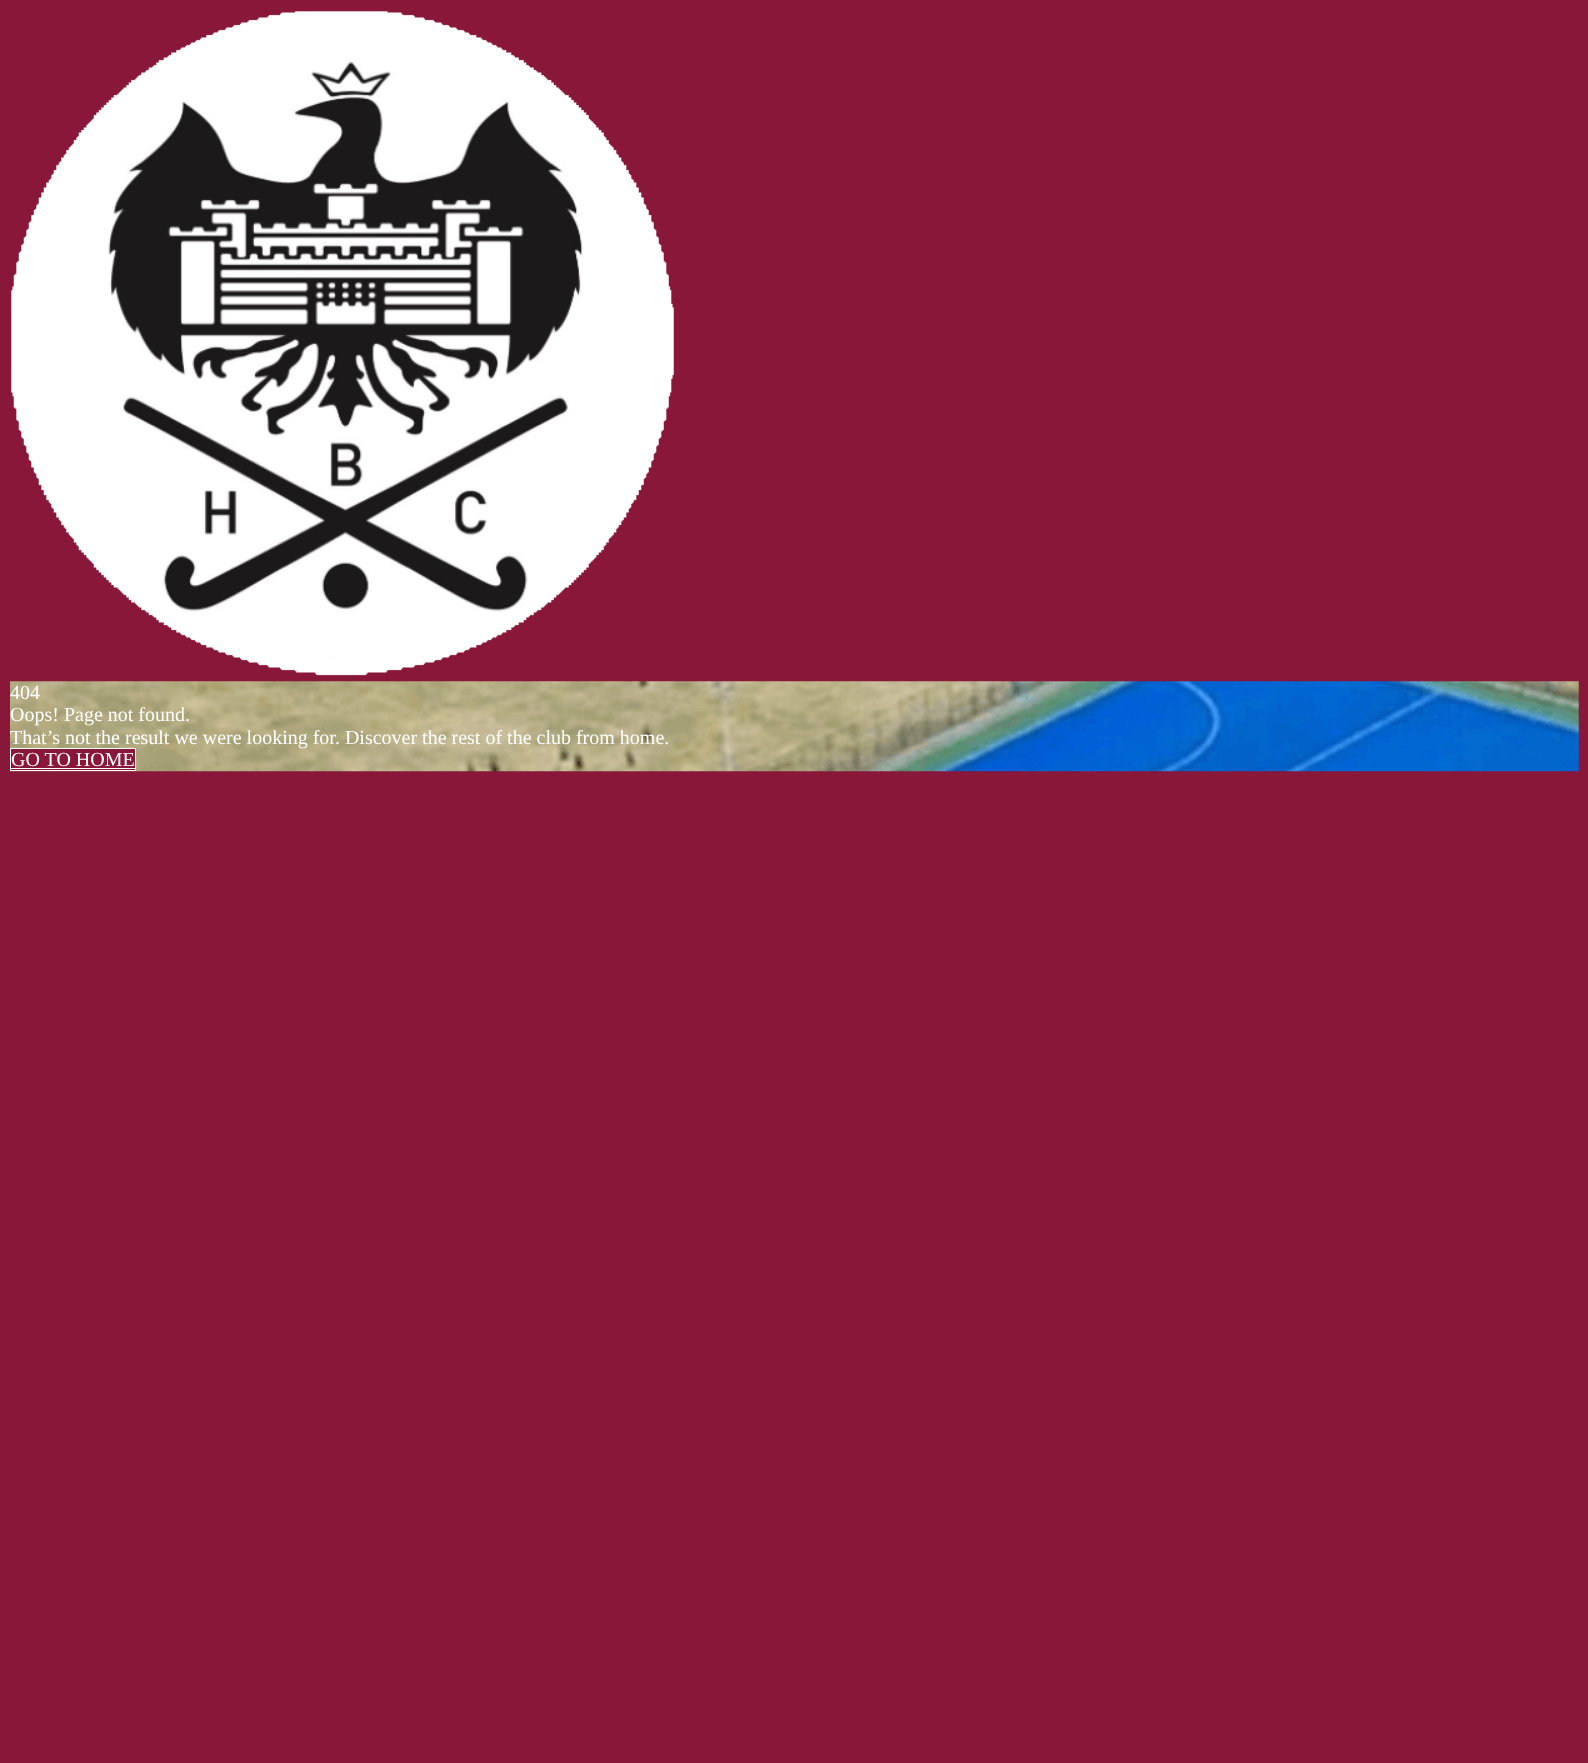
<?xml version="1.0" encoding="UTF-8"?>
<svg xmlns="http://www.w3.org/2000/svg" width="1588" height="1763">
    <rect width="100%" height="100%" fill="#881739"/>
    <image x="11" y="11" width="663" height="665" href="img_01.png"/>
    <image x="10" y="681" width="1569" height="91" href="img_02.png"/>
    <text font-family="Liberation Serif" font-size="20" fill="#FFFFFF">
        <tspan x="10" y="699">404</tspan>
        <tspan x="10" y="721">Oops! Page not found.</tspan>
        <tspan x="10" y="744">That’s not the result we were looking for. Discover the rest of the club from home.</tspan>
    </text>
    <rect x="10.5" y="748.5" width="125" height="22" fill="#881739" stroke="#FFFFFF"/>
    <text x="11" y="766" font-family="Liberation Serif" font-size="20" fill="#FFFFFF">GO TO HOME</text>
    <rect x="11" y="768" width="124" height="1" fill="#FFFFFF"/>
</svg>
